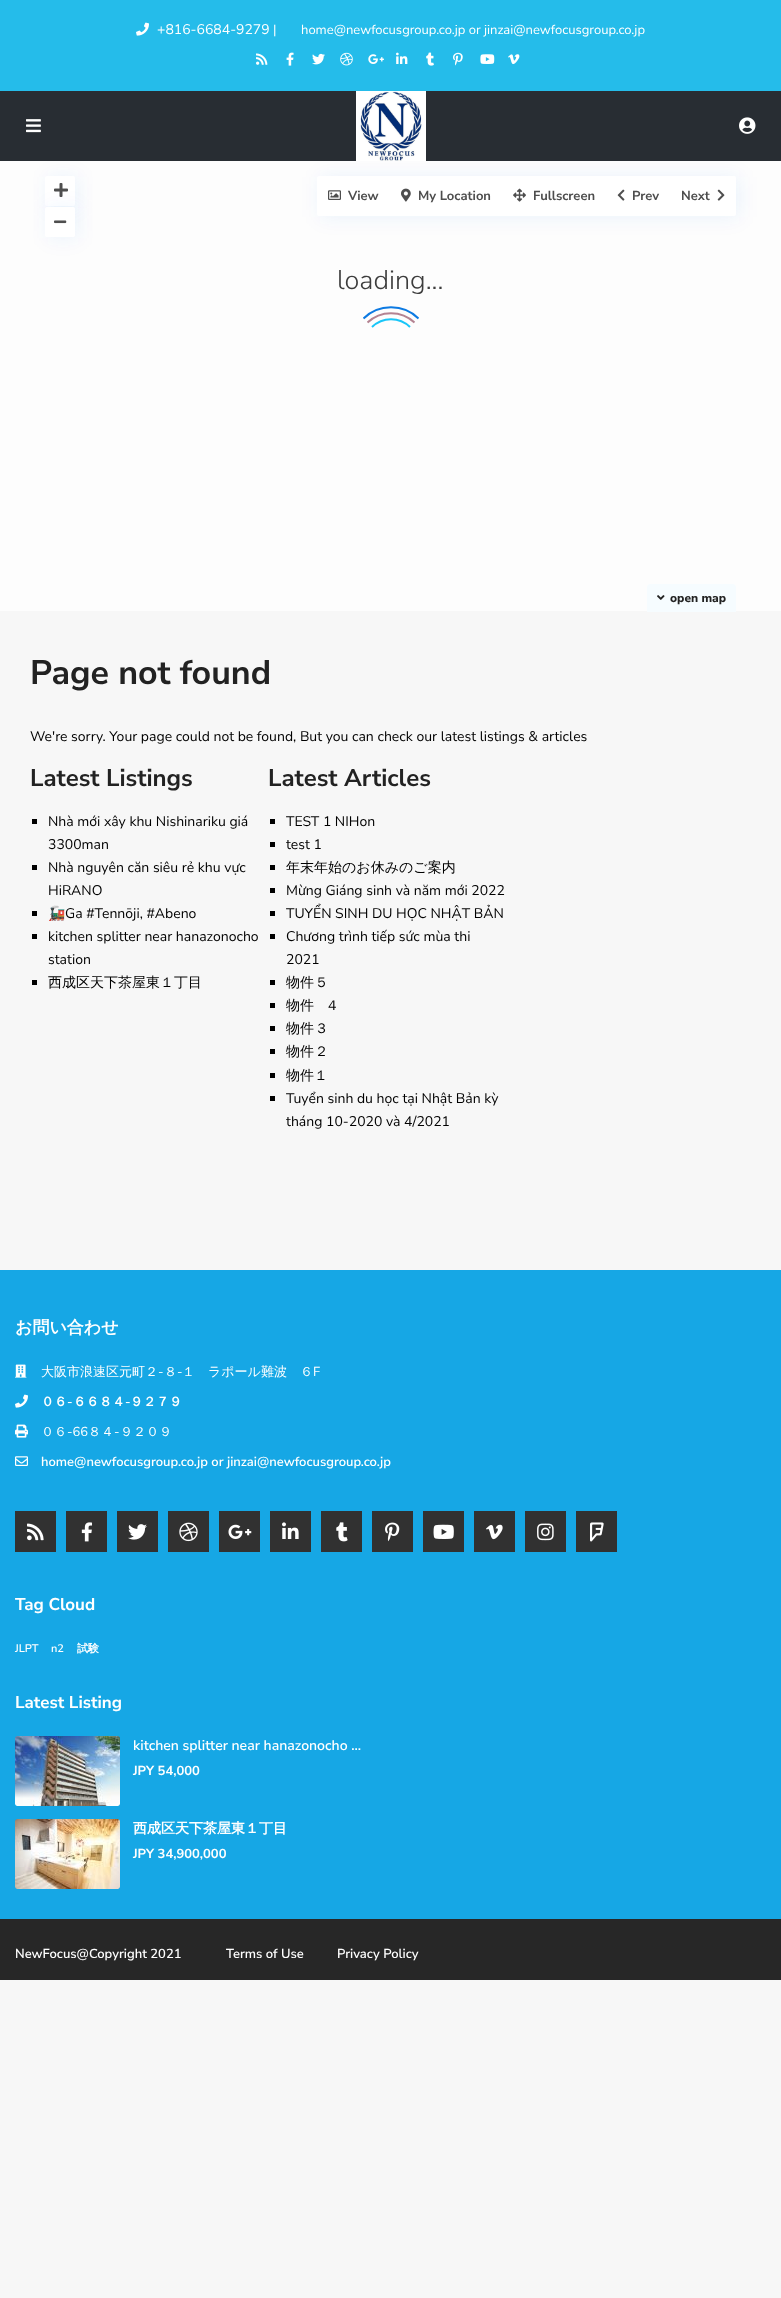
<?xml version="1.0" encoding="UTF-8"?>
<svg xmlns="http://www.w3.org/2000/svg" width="781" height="2298">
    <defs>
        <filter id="blur1" x="-50%" y="-200%" width="200%" height="500%"><feGaussianBlur stdDeviation="10"/></filter>
        <clipPath id="clip1"><path d="M 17 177 H 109 V 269 H 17 Z M 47 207 H 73 C 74 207 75 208 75 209 V 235 C 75 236 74 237 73 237 H 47 C 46 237 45 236 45 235 V 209 C 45 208 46 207 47 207 Z" clip-rule="evenodd"/></clipPath>
    </defs>
    <rect width="100%" height="100%" fill="#F7F7F7"/>
    <rect x="0" y="0" width="781" height="91" fill="#25BCEA"/>
    <image x="136" y="22" width="13" height="14" href="img_01.png"/>
    <text x="157" y="34" font-family="Nunito Sans" font-size="14" fill="#FFFFFF">+816-6684-9279</text>
    <text x="273" y="34" font-family="Nunito Sans" font-size="13" fill="#FFFFFF">|</text>
    <text x="301" y="34" font-family="Nunito Sans" font-size="13" fill="#FFFFFF">home@newfocusgroup.co.jp or jinzai@newfocusgroup.co.jp</text>
    <image x="256" y="53" width="12" height="12" href="img_02.png"/>
    <image x="286" y="52" width="8" height="14" href="img_03.png"/>
    <image x="312" y="53" width="13" height="12" href="img_04.png"/>
    <image x="340" y="52" width="13" height="14" href="img_05.png"/>
    <image x="368" y="54" width="16" height="10" href="img_06.png"/>
    <image x="396" y="52" width="12" height="12" href="img_07.png"/>
    <image x="426" y="52" width="8" height="14" href="img_08.png"/>
    <image x="453" y="52" width="10" height="14" href="img_09.png"/>
    <image x="480" y="54" width="15" height="10" href="img_10.png"/>
    <image x="508" y="54" width="12" height="11" href="img_11.png"/>
    <rect x="0" y="161" width="781" height="450" fill="#FDFDFD"/>
    <rect x="48" y="177" width="30" height="30" rx="2" fill="#006EE1" fill-opacity="0.08" filter="url(#blur1)"/>
    <rect x="320" y="177" width="419" height="40" rx="2" fill="#006EE1" fill-opacity="0.08" filter="url(#blur1)"/>
    <rect x="0" y="91" width="781" height="70" fill="#282D33"/>
    <image x="26" y="119" width="15" height="14" href="img_12.png"/>
    <image x="356" y="91" width="70" height="70" href="img_13.png"/>
    <image x="739" y="117" width="17" height="17" href="img_14.png"/>
    <rect x="45" y="176" width="30" height="30" rx="2" fill="#FFFFFF"/>
    <image x="54" y="183" width="14" height="14" href="img_15.png"/>
    <g clip-path="url(#clip1)">
        <rect x="48" y="208" width="30" height="30" rx="2" fill="#006EE1" fill-opacity="0.08" filter="url(#blur1)"/>
    </g>
    <rect x="45" y="207" width="30" height="30" rx="2" fill="#FFFFFF" fill-opacity="0.95"/>
    <image x="54" y="220" width="13" height="4" href="img_16.png"/>
    <rect x="317" y="176" width="419" height="40" rx="2" fill="#FFFFFF"/>
    <image x="328" y="190" width="13" height="10" href="img_17.png"/>
    <text x="348" y="200" font-family="Nunito Sans" font-size="13" font-weight="700" fill="#4D4D4D">View</text>
    <image x="401" y="188" width="10" height="14" href="img_18.png"/>
    <text x="418" y="200" font-family="Nunito Sans" font-size="13" font-weight="700" fill="#4D4D4D">My Location</text>
    <image x="513" y="188" width="13" height="14" href="img_19.png"/>
    <text x="533" y="200" font-family="Nunito Sans" font-size="13" font-weight="700" fill="#4D4D4D">Fullscreen</text>
    <image x="617" y="189" width="8" height="12" href="img_20.png"/>
    <text x="632" y="200" font-family="Nunito Sans" font-size="13" font-weight="700" fill="#4D4D4D">Prev</text>
    <text x="681" y="200" font-family="Nunito Sans" font-size="13" font-weight="700" fill="#4D4D4D">Next</text>
    <image x="717" y="189" width="8" height="12" href="img_21.png"/>
    <path d="M 650 584 H 733 C 734.5 584 736 585.5 736 587 V 612 H 647 V 587 C 647 585.5 648.5 584 650 584 Z" fill="#F6FCFF"/>
    <image x="657" y="595" width="8" height="5" href="img_22.png"/>
    <text x="670" y="602" font-family="Nunito Sans" font-size="12" font-weight="800" fill="#222222">open map</text>
    <text x="337" y="289" font-family="Nunito Sans" font-size="27" font-weight="300" fill="#3D3D3D">loading...</text>
    <path d="M 363.5 318.5 C 378.5 303.5 403.5 303.5 418.5 318.5" fill="none" stroke="#0D7AE2" stroke-width="2"/>
    <path d="M 367.5 322.5 C 380.5 310 401.5 310 414.5 322.5" fill="none" stroke="#B48392" stroke-width="2"/>
    <path d="M 372 327 C 382.5 316.5 399.5 316.5 410 327" fill="none" stroke="#19C6F8" stroke-width="2"/>
    <text x="30" y="684" font-family="Nunito Sans" font-size="34" font-weight="700" fill="#222222">Page not found</text>
    <text x="30" y="741" font-family="Nunito Sans" font-size="14" fill="#000000">We're sorry. Your page could not be found, But you can check our latest listings &amp; articles</text>
    <text x="30" y="786" font-family="Nunito Sans" font-size="24" font-weight="700" fill="#222222">Latest Listings</text>
    <rect x="32" y="819" width="5" height="5" fill="#000000"/>
    <text font-family="Nunito Sans" font-size="14" fill="#000000">
        <tspan x="48" y="826">Nhà mới xây khu Nishinariku giá</tspan>
        <tspan x="48" y="849">3300man</tspan>
    </text>
    <rect x="32" y="865" width="5" height="5" fill="#000000"/>
    <text font-family="Nunito Sans" font-size="14" fill="#000000">
        <tspan x="48" y="872">Nhà nguyên căn siêu rẻ khu vực</tspan>
        <tspan x="48" y="895">HiRANO</tspan>
    </text>
    <rect x="32" y="911" width="5" height="5" fill="#000000"/>
    <text x="48" y="918" font-family="Noto Color Emoji" font-size="14" fill="#000000">🚂</text>
    <text x="65" y="918" font-family="Nunito Sans" font-size="14" fill="#000000">Ga #Tennōji, #Abeno</text>
    <rect x="32" y="934" width="5" height="5" fill="#000000"/>
    <text font-family="Nunito Sans" font-size="14" fill="#000000">
        <tspan x="48" y="941">kitchen splitter near hanazonocho</tspan>
        <tspan x="48" y="964">station</tspan>
    </text>
    <rect x="32" y="980" width="5" height="5" fill="#000000"/>
    <text x="48" y="987" font-family="WenQuanYi Zen Hei" font-size="14" font-weight="500" fill="#000000">西成区天下茶屋東１丁目</text>
    <text x="268" y="786" font-family="Nunito Sans" font-size="24" font-weight="700" fill="#222222">Latest Articles</text>
    <rect x="270" y="819" width="5" height="5" fill="#000000"/>
    <text x="286" y="826" font-family="Nunito Sans" font-size="14" fill="#000000">TEST 1 NIHon</text>
    <rect x="270" y="842" width="5" height="5" fill="#000000"/>
    <text x="286" y="849" font-family="Nunito Sans" font-size="14" fill="#000000">test 1</text>
    <rect x="270" y="865" width="5" height="5" fill="#000000"/>
    <text x="286" y="872" font-family="WenQuanYi Zen Hei" font-size="14" font-weight="500" fill="#000000">年末年始のお休みのご案内</text>
    <rect x="270" y="888" width="5" height="5" fill="#000000"/>
    <text x="286" y="895" font-family="Nunito Sans" font-size="14" fill="#000000">Mừng Giáng sinh và năm mới 2022</text>
    <rect x="270" y="911" width="5" height="5" fill="#000000"/>
    <text x="286" y="918" font-family="Nunito Sans" font-size="14" fill="#000000">TUYỂN SINH DU HỌC NHẬT BẢN</text>
    <rect x="270" y="934" width="5" height="5" fill="#000000"/>
    <text font-family="Nunito Sans" font-size="14" fill="#000000">
        <tspan x="286" y="941">Chương trình tiếp sức mùa thi</tspan>
        <tspan x="286" y="964">2021</tspan>
    </text>
    <rect x="270" y="980" width="5" height="5" fill="#000000"/>
    <text x="286" y="987" word-spacing="-1" font-family="WenQuanYi Zen Hei" font-size="14" font-weight="500" fill="#000000">物件 5</text>
    <rect x="270" y="1003" width="5" height="5" fill="#000000"/>
    <text x="286" y="1010" font-family="WenQuanYi Zen Hei" font-size="14" font-weight="500" fill="#000000">物件　4</text>
    <rect x="270" y="1026" width="5" height="5" fill="#000000"/>
    <text x="286" y="1033" word-spacing="-1" font-family="WenQuanYi Zen Hei" font-size="14" font-weight="500" fill="#000000">物件 3</text>
    <rect x="270" y="1049" width="5" height="5" fill="#000000"/>
    <text x="286" y="1056" word-spacing="-1" font-family="WenQuanYi Zen Hei" font-size="14" font-weight="500" fill="#000000">物件 2</text>
    <rect x="270" y="1073" width="5" height="5" fill="#000000"/>
    <text x="286" y="1080" font-family="WenQuanYi Zen Hei" font-size="14" font-weight="500" fill="#000000">物件１</text>
    <rect x="270" y="1096" width="5" height="5" fill="#000000"/>
    <text font-family="Nunito Sans" font-size="14" fill="#000000">
        <tspan x="286" y="1103">Tuyển sinh du học tại Nhật Bản kỳ</tspan>
        <tspan x="286" y="1126">tháng 10-2020 và 4/2021</tspan>
    </text>
    <rect x="0" y="1270" width="781" height="649" fill="#16A7E5"/>
    <text x="15" y="1333" font-family="WenQuanYi Zen Hei" font-size="17" font-weight="700" fill="#FFFFFF">お問い合わせ</text>
    <image x="15" y="1364" width="12" height="14" href="img_23.png"/>
    <text x="41" y="1376" font-family="WenQuanYi Zen Hei" font-size="13" font-weight="500" fill="#FFFFFF">大阪市浪速区元町２</text>
    <text x="158" y="1376" font-family="Nunito Sans" font-size="13" fill="#FFFFFF">-</text>
    <text x="164" y="1376" font-family="WenQuanYi Zen Hei" font-size="13" font-weight="500" fill="#FFFFFF">８</text>
    <text x="177" y="1376" font-family="Nunito Sans" font-size="13" fill="#FFFFFF">-</text>
    <text x="182" y="1376" font-family="WenQuanYi Zen Hei" font-size="13" font-weight="500" fill="#FFFFFF">１　ラポール難波　６</text>
    <text x="313" y="1376" font-family="Nunito Sans" font-size="13" fill="#FFFFFF">F</text>
    <image x="15" y="1394" width="13" height="14" href="img_24.png"/>
    <text x="41" y="1406" font-family="WenQuanYi Zen Hei" font-size="13" font-weight="700" fill="#FFFFFF">０６</text>
    <text x="67" y="1406" font-family="Nunito Sans" font-size="13" font-weight="600" fill="#FFFFFF">-</text>
    <text x="73" y="1406" font-family="WenQuanYi Zen Hei" font-size="13" font-weight="700" fill="#FFFFFF">６６８４</text>
    <text x="125" y="1406" font-family="Nunito Sans" font-size="13" font-weight="600" fill="#FFFFFF">-</text>
    <text x="130" y="1406" font-family="WenQuanYi Zen Hei" font-size="13" font-weight="700" fill="#FFFFFF">９２７９</text>
    <image x="15" y="1424" width="13" height="14" href="img_25.png"/>
    <text x="41" y="1436" font-family="WenQuanYi Zen Hei" font-size="13" font-weight="500" fill="#FFFFFF">０６</text>
    <text x="67" y="1436" font-family="Nunito Sans" font-size="13" fill="#FFFFFF">-66</text>
    <text x="88" y="1436" font-family="WenQuanYi Zen Hei" font-size="13" font-weight="500" fill="#FFFFFF">８４</text>
    <text x="114" y="1436" font-family="Nunito Sans" font-size="13" fill="#FFFFFF">-</text>
    <text x="120" y="1436" font-family="WenQuanYi Zen Hei" font-size="13" font-weight="500" fill="#FFFFFF">９２０９</text>
    <image x="15" y="1456" width="13" height="10" href="img_26.png"/>
    <text x="41" y="1466" font-family="Nunito Sans" font-size="13" font-weight="600" fill="#FFFFFF">home@newfocusgroup.co.jp or jinzai@newfocusgroup.co.jp</text>
    <rect x="15" y="1511" width="41" height="41" fill="#313131"/>
    <image x="27" y="1523" width="17" height="18" href="img_27.png"/>
    <rect x="66" y="1511" width="41" height="41" fill="#313131"/>
    <image x="81" y="1522" width="12" height="20" href="img_28.png"/>
    <rect x="117" y="1511" width="41" height="41" fill="#313131"/>
    <image x="128" y="1524" width="19" height="16" href="img_29.png"/>
    <rect x="168" y="1511" width="41" height="41" fill="#313131"/>
    <image x="179" y="1522" width="19" height="20" href="img_30.png"/>
    <rect x="219" y="1511" width="41" height="41" fill="#313131"/>
    <image x="228" y="1524" width="24" height="15" href="img_31.png"/>
    <rect x="270" y="1511" width="41" height="41" fill="#313131"/>
    <image x="282" y="1522" width="17" height="17" href="img_32.png"/>
    <rect x="321" y="1511" width="41" height="41" fill="#313131"/>
    <image x="336" y="1522" width="12" height="20" href="img_33.png"/>
    <rect x="372" y="1511" width="41" height="41" fill="#313131"/>
    <image x="385" y="1522" width="15" height="20" href="img_34.png"/>
    <rect x="423" y="1511" width="41" height="41" fill="#313131"/>
    <image x="433" y="1524" width="21" height="15" href="img_35.png"/>
    <rect x="474" y="1511" width="41" height="41" fill="#313131"/>
    <image x="486" y="1524" width="17" height="16" href="img_36.png"/>
    <rect x="525" y="1511" width="41" height="41" fill="#313131"/>
    <image x="537" y="1523" width="17" height="18" href="img_37.png"/>
    <rect x="576" y="1511" width="41" height="41" fill="#313131"/>
    <image x="590" y="1522" width="14" height="20" href="img_38.png"/>
    <text x="15" y="1610" font-family="Nunito Sans" font-size="17" font-weight="700" fill="#FFFFFF">Tag Cloud</text>
    <text x="15" y="1652" font-family="Nunito Sans" font-size="11" font-weight="600" fill="#FFFFFF">JLPT</text>
    <text x="51" y="1652" font-family="Nunito Sans" font-size="11" font-weight="600" fill="#FFFFFF">n2</text>
    <text x="77" y="1652" font-family="WenQuanYi Zen Hei" font-size="11" font-weight="700" fill="#FFFFFF">試験</text>
    <text x="15" y="1708" font-family="Nunito Sans" font-size="17" font-weight="700" fill="#FFFFFF">Latest Listing</text>
    <image x="15" y="1736" width="105" height="70" href="img_39.png"/>
    <text x="133" y="1750" font-family="Nunito Sans" font-size="14" font-weight="600" fill="#FFFFFF">kitchen splitter near hanazonocho ...</text>
    <text x="133" y="1775" font-family="Nunito Sans" font-size="13" font-weight="700" fill="#FFFFFF">JPY 54,000</text>
    <image x="15" y="1819" width="105" height="70" href="img_40.png"/>
    <text x="133" y="1833" font-family="WenQuanYi Zen Hei" font-size="14" font-weight="700" fill="#FFFFFF">西成区天下茶屋東１丁目</text>
    <text x="133" y="1858" font-family="Nunito Sans" font-size="13" font-weight="700" fill="#FFFFFF">JPY 34,900,000</text>
    <rect x="0" y="1919" width="781" height="61" fill="#272727"/>
    <text x="15" y="1958" font-family="Nunito Sans" font-size="13" font-weight="600" fill="#FFFFFF">NewFocus@Copyright 2021</text>
    <text x="226" y="1958" font-family="Nunito Sans" font-size="13" font-weight="600" fill="#FFFFFF">Terms of Use</text>
    <text x="337" y="1958" font-family="Nunito Sans" font-size="13" font-weight="600" fill="#FFFFFF">Privacy Policy</text>
</svg>
